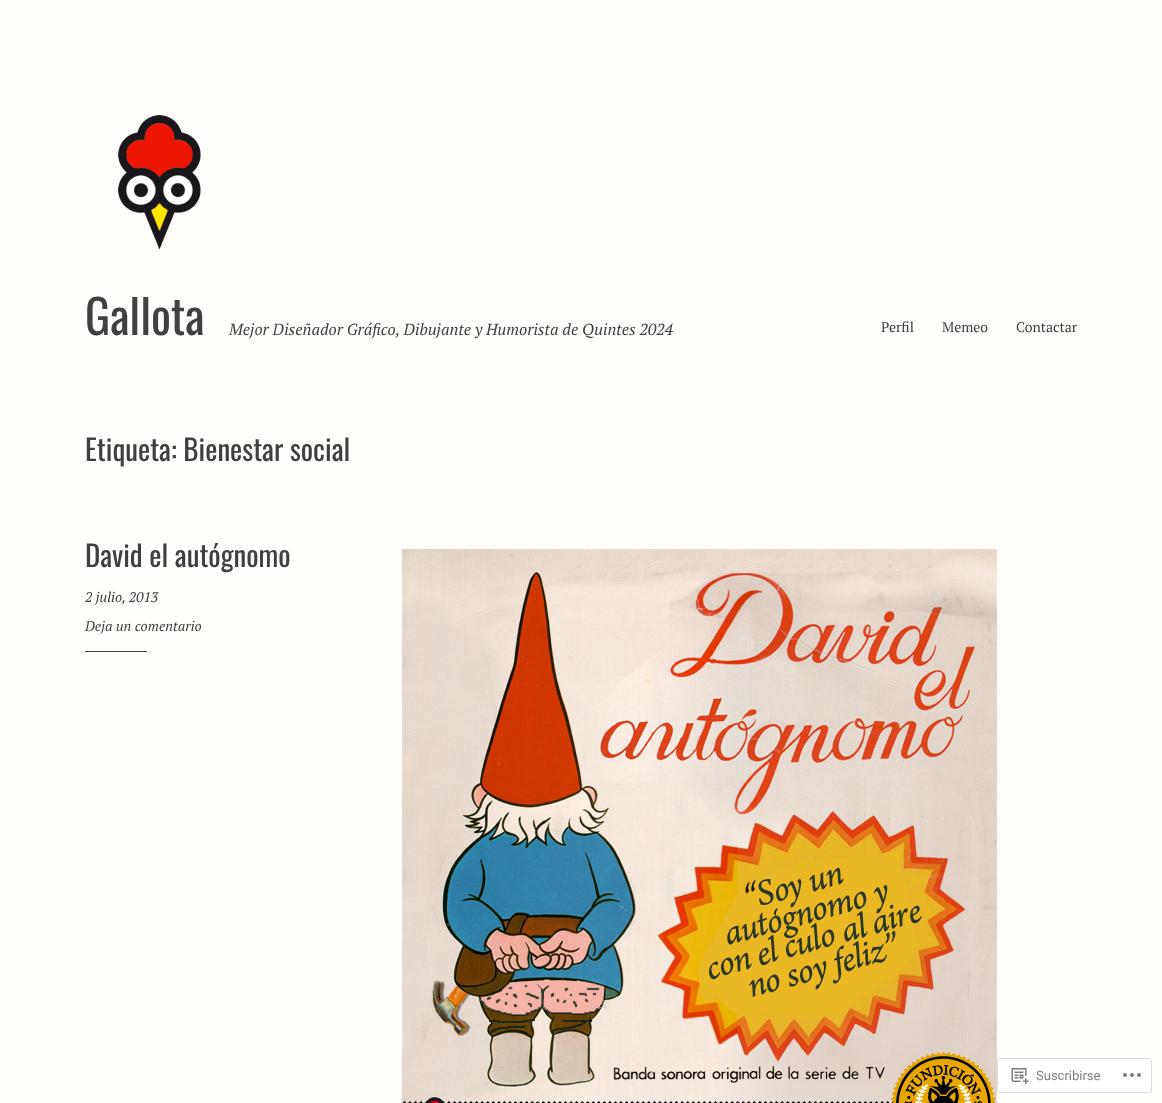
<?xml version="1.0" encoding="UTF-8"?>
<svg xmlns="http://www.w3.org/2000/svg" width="1162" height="1103">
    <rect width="100%" height="100%" fill="#FFFEFB"/>
    <image x="118" y="115" width="83" height="135" href="img_01.png"/>
    <text x="85" y="335" font-family="Oswald" font-size="47" fill="#404040">Gallota</text>
    <text x="229" y="335" font-family="PT Serif" font-size="16" font-style="italic" fill="#404040">Mejor Diseñador Gráfico, Dibujante y Humorista de Quintes 2024</text>
    <text x="881" y="332" font-family="PT Serif" font-size="14" fill="#404040">Perfil</text>
    <text x="942" y="332" font-family="PT Serif" font-size="14" fill="#404040">Memeo</text>
    <text x="1016" y="332" font-family="PT Serif" font-size="14" fill="#404040">Contactar</text>
    <text x="85" y="461" font-family="Oswald" font-size="29" fill="#404040">Etiqueta: Bienestar social</text>
    <text x="85" y="567" font-family="Oswald" font-size="29" fill="#404040">David el autógnomo</text>
    <text x="85" y="602" font-family="PT Serif" font-size="14" font-style="italic" fill="#404040">2 julio, 2013</text>
    <text x="85" y="631" font-family="PT Serif" font-size="14" font-style="italic" fill="#404040">Deja un comentario</text>
    <rect x="85" y="651" width="62" height="1" fill="#404040"/>
    <image x="402" y="549" width="595" height="554" href="img_02.png"/>
    <rect x="997.5" y="1058.5" width="154" height="34" rx="2.5" fill="#FFFFFF" stroke="#DDDDDF"/>
    <image x="1011" y="1068" width="18" height="17" href="img_03.png"/>
    <text x="1036" y="1080" font-family="Roboto" font-size="13" fill="#7B7F84">Suscribirse</text>
    <image x="1123" y="1073" width="18" height="4" href="img_04.png"/>
</svg>
